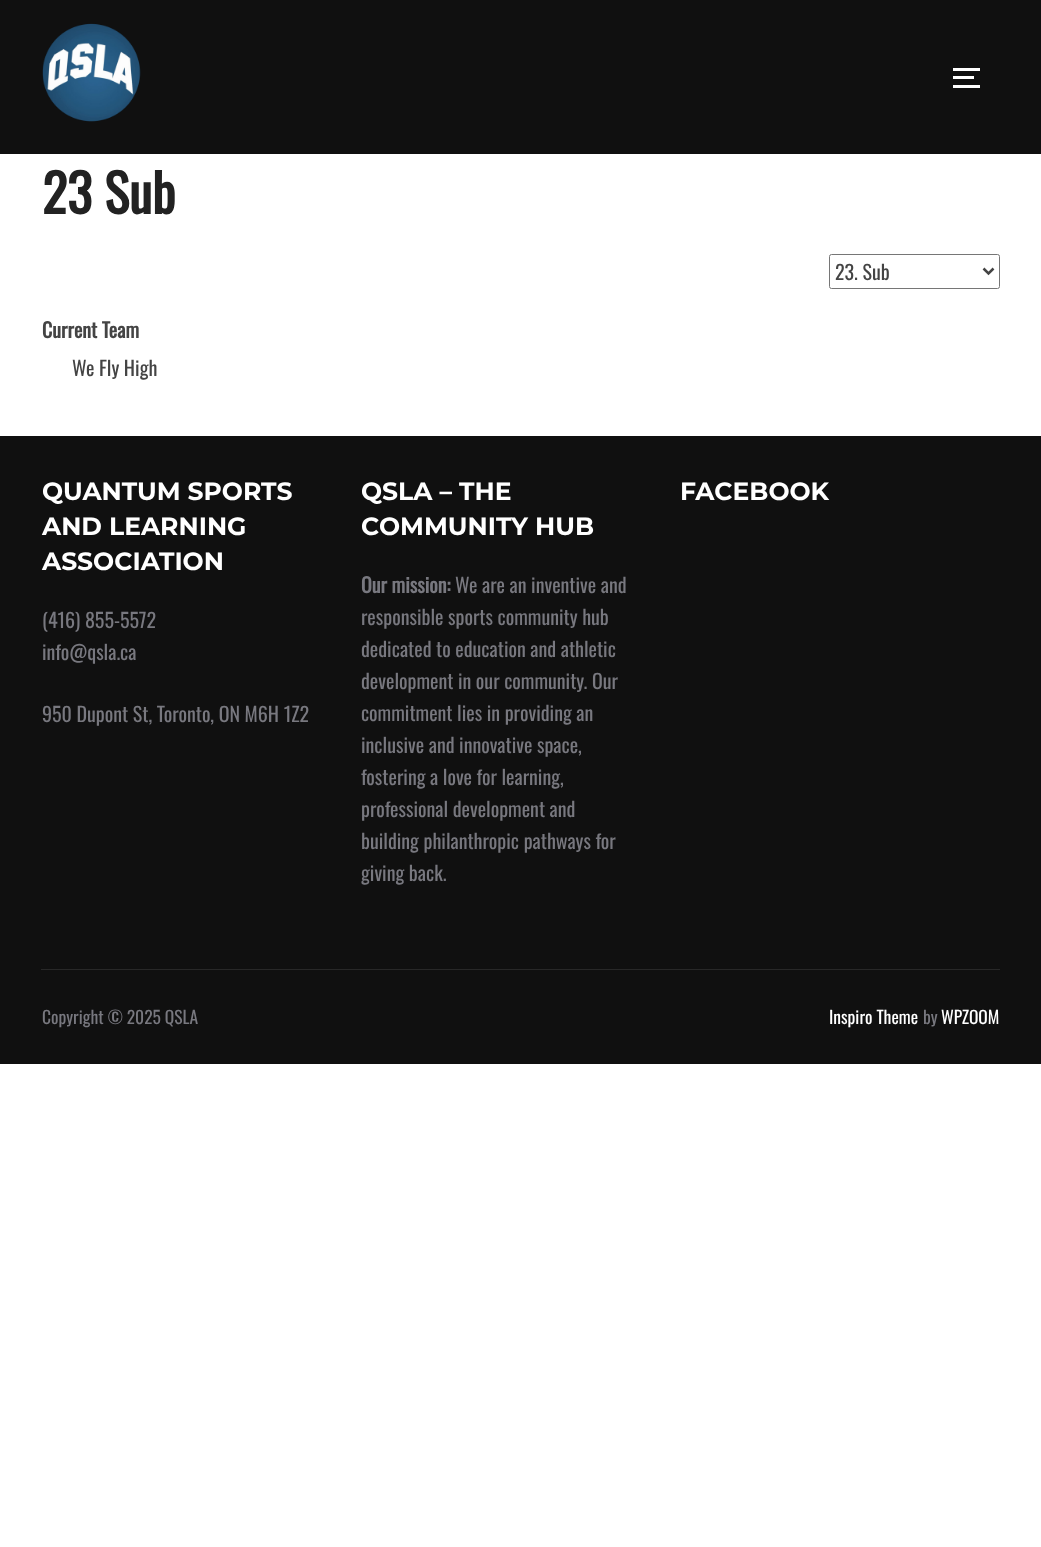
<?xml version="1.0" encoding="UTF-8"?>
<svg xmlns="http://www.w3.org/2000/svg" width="1041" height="1547">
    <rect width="100%" height="100%" fill="#FFFFFF"/>
    <rect x="0" y="0" width="1041" height="154" fill="#101010"/>
    <image x="42" y="23" width="99" height="99" href="img_01.png"/>
    <rect x="953" y="68" width="27" height="3" fill="#FFFFFF"/>
    <rect x="953" y="76" width="21" height="3" fill="#FFFFFF"/>
    <rect x="953" y="85" width="27" height="3" fill="#FFFFFF"/>
    <text x="42" y="214" font-family="Oswald" font-size="52.5" font-weight="700" fill="#222222">23 Sub</text>
    <rect x="829.5" y="254.5" width="170" height="34" rx="2" fill="none" stroke="#767676"/>
    <path d="M 983.5 268.5 L 988.5 273.5 L 993.5 268.5" fill="none" stroke="#444444" stroke-width="2.5"/>
    <text x="835" y="280" font-family="Oswald" font-size="20" fill="#444444">23. Sub</text>
    <text x="42" y="338" font-family="Oswald" font-size="20" font-weight="700" fill="#444444">Current Team</text>
    <text x="72" y="376" font-family="Oswald" font-size="20" fill="#444444">We Fly High</text>
    <rect x="0" y="436" width="1041" height="628" fill="#101010"/>
    <text font-family="Montserrat" font-size="25" font-weight="100" fill="#FFFFFF">
        <tspan x="42" y="500">QUANTUM SPORTS</tspan>
        <tspan x="42" y="535">AND LEARNING</tspan>
        <tspan x="42" y="570">ASSOCIATION</tspan>
    </text>
    <text font-family="Oswald" font-size="20" fill="#78787F">
        <tspan x="42" y="628">(416) 855-5572</tspan>
        <tspan x="42" y="660">info@qsla.ca</tspan>
    </text>
    <text x="42" y="722" font-family="Oswald" font-size="20" fill="#78787F">950 Dupont St, Toronto, ON M6H 1Z2</text>
    <text font-family="Montserrat" font-size="25" font-weight="100" fill="#FFFFFF">
        <tspan x="361" y="500">QSLA – THE</tspan>
        <tspan x="361" y="535">COMMUNITY HUB</tspan>
    </text>
    <text x="361" y="593" font-family="Oswald" font-size="20" font-weight="700" fill="#78787F">Our mission:</text>
    <text x="455" y="593" font-family="Oswald" font-size="20" fill="#78787F">We are an inventive and</text>
    <text font-family="Oswald" font-size="20" fill="#78787F">
        <tspan x="361" y="625">responsible sports community hub</tspan>
        <tspan x="361" y="657">dedicated to education and athletic</tspan>
        <tspan x="361" y="689">development in our community. Our</tspan>
        <tspan x="361" y="721">commitment lies in providing an</tspan>
        <tspan x="361" y="753">inclusive and innovative space,</tspan>
        <tspan x="361" y="785">fostering a love for learning,</tspan>
        <tspan x="361" y="817">professional development and</tspan>
        <tspan x="361" y="849">building philanthropic pathways for</tspan>
        <tspan x="361" y="881">giving back.</tspan>
    </text>
    <text x="680" y="500" font-family="Montserrat" font-size="25" font-weight="100" fill="#FFFFFF">FACEBOOK</text>
    <rect x="41" y="969" width="959" height="1" fill="#282828"/>
    <text x="42" y="1024" font-family="Oswald" font-size="17.5" fill="#78787F">Copyright © 2025 QSLA</text>
    <text x="829" y="1024" font-family="Oswald" font-size="17.5" fill="#FFFFFF">Inspiro Theme</text>
    <text x="923" y="1024" font-family="Oswald" font-size="17.5" fill="#78787F">by</text>
    <text x="941" y="1024" font-family="Oswald" font-size="17.5" fill="#FFFFFF">WPZOOM</text>
</svg>
